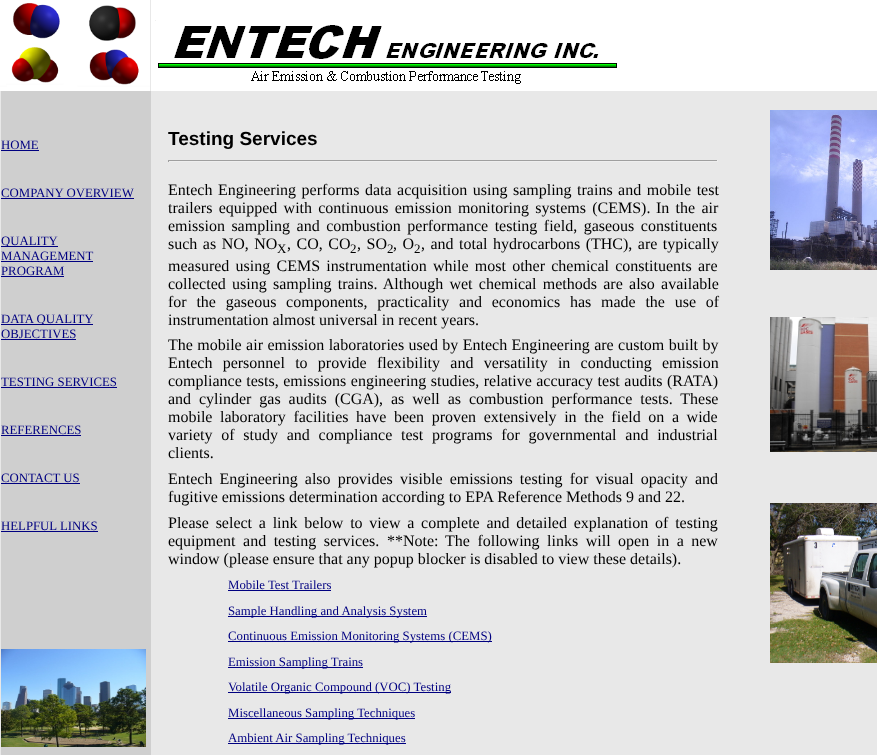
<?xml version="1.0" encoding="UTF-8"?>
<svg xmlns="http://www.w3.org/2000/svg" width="877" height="755">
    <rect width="100%" height="100%" fill="#E8E8E8"/>
    <image x="0" y="0" width="150" height="91" href="img_01.png"/>
    <rect x="151" y="0" width="726" height="91" fill="#FFFFFF"/>
    <image x="155" y="20" width="462" height="64" href="img_02.png"/>
    <rect x="1" y="91" width="150" height="664" fill="#CFCFCF"/>
    <text x="1" y="149" font-family="Liberation Serif" font-size="12.8" fill="#000080">HOME</text>
    <rect x="1" y="150" width="38" height="1" fill="#000080"/>
    <text x="1" y="197" font-family="Liberation Serif" font-size="12.8" fill="#000080">COMPANY OVERVIEW</text>
    <rect x="1" y="198" width="133" height="1" fill="#000080"/>
    <rect x="1" y="246" width="57" height="1" fill="#000080"/>
    <text font-family="Liberation Serif" font-size="12.8" fill="#000080">
        <tspan x="1" y="245">QUALITY</tspan>
        <tspan x="1" y="260">MANAGEMENT</tspan>
    </text>
    <rect x="1" y="261" width="92" height="1" fill="#000080"/>
    <text x="1" y="275" font-family="Liberation Serif" font-size="12.8" fill="#000080">PROGRAM</text>
    <rect x="1" y="276" width="63" height="1" fill="#000080"/>
    <rect x="1" y="324" width="92" height="1" fill="#000080"/>
    <text font-family="Liberation Serif" font-size="12.8" fill="#000080">
        <tspan x="1" y="323">DATA QUALITY</tspan>
        <tspan x="1" y="338">OBJECTIVES</tspan>
    </text>
    <rect x="1" y="339" width="75" height="1" fill="#000080"/>
    <text x="1" y="386" font-family="Liberation Serif" font-size="12.8" fill="#000080">TESTING SERVICES</text>
    <rect x="1" y="387" width="116" height="1" fill="#000080"/>
    <text x="1" y="434" font-family="Liberation Serif" font-size="12.8" fill="#000080">REFERENCES</text>
    <rect x="1" y="435" width="80" height="1" fill="#000080"/>
    <text x="1" y="482" font-family="Liberation Serif" font-size="12.8" fill="#000080">CONTACT US</text>
    <rect x="1" y="483" width="79" height="1" fill="#000080"/>
    <text x="1" y="530" font-family="Liberation Serif" font-size="12.8" fill="#000080">HELPFUL LINKS</text>
    <rect x="1" y="531" width="97" height="1" fill="#000080"/>
    <text x="168" y="145" font-family="Liberation Sans" font-size="19" font-weight="700" fill="#000000">Testing Services</text>
    <rect x="168" y="160" width="550" height="1" fill="#9F9F9F"/>
    <rect x="717" y="160" width="1" height="2" fill="#EEEEEE"/>
    <rect x="168" y="161" width="550" height="1" fill="#EEEEEE"/>
    <rect x="168" y="160" width="1" height="2" fill="#9F9F9F"/>
    <text font-family="Liberation Serif" font-size="16" fill="#000000">
        <tspan x="168" y="195" word-spacing="1.5">Entech Engineering performs data acquisition using sampling trains and mobile test</tspan>
        <tspan x="168" y="213" word-spacing="2.25">trailers equipped with continuous emission monitoring systems (CEMS).</tspan>
    </text>
    <text x="656" y="213" word-spacing="2.25" font-family="Liberation Serif" font-size="16" fill="#000000">In the air</text>
    <text font-family="Liberation Serif" font-size="16" fill="#000000">
        <tspan x="168" y="231" word-spacing="2.5">emission sampling and combustion performance testing field, gaseous constituents</tspan>
        <tspan x="168" y="249" word-spacing="1.5">such as NO, NO</tspan>
    </text>
    <text x="277" y="253" font-family="Liberation Serif" font-size="13" fill="#000000">X</text>
    <text x="287" y="249" word-spacing="1.5" font-family="Liberation Serif" font-size="16" fill="#000000">, CO, CO</text>
    <text x="350" y="253" font-family="Liberation Serif" font-size="13" fill="#000000">2</text>
    <text x="357" y="249" word-spacing="1.5" font-family="Liberation Serif" font-size="16" fill="#000000">, SO</text>
    <text x="387" y="253" font-family="Liberation Serif" font-size="13" fill="#000000">2</text>
    <text x="393" y="249" word-spacing="1.5" font-family="Liberation Serif" font-size="16" fill="#000000">, O</text>
    <text x="414" y="253" font-family="Liberation Serif" font-size="13" fill="#000000">2</text>
    <text x="421" y="249" word-spacing="1.5" font-family="Liberation Serif" font-size="16" fill="#000000">, and total hydrocarbons (THC), are typically</text>
    <text font-family="Liberation Serif" font-size="16" fill="#000000">
        <tspan x="168" y="271" word-spacing="2.25">measured using CEMS instrumentation while most other chemical constituents are</tspan>
        <tspan x="168" y="289" word-spacing="2.25">collected using sampling trains. Although wet chemical methods are also available</tspan>
        <tspan x="168" y="307" word-spacing="5.75">for the gaseous components, practicality and economics has made the use of</tspan>
        <tspan x="168" y="325">instrumentation almost universal in recent years.</tspan>
        <tspan x="168" y="350" word-spacing="0.4">The mobile air emission laboratories used by Entech Engineering are custom built by</tspan>
        <tspan x="168" y="368" word-spacing="6.25">Entech personnel to provide flexibility and versatility in conducting emission</tspan>
        <tspan x="168" y="386" word-spacing="0.5">compliance tests, emissions engineering studies, relative accuracy test audits (RATA)</tspan>
        <tspan x="168" y="404" word-spacing="3.9">and cylinder gas audits (CGA), as well as combustion performance tests. These</tspan>
        <tspan x="168" y="422" word-spacing="3.6">mobile laboratory facilities have been proven extensively in the field on a wide</tspan>
        <tspan x="168" y="440" word-spacing="4.75">variety of study and compliance test programs for governmental and industrial</tspan>
        <tspan x="168" y="458">clients.</tspan>
        <tspan x="168" y="484" word-spacing="3.1">Entech Engineering also provides visible emissions testing for visual opacity and</tspan>
        <tspan x="168" y="502">fugitive emissions determination according to EPA Reference Methods 9 and 22.</tspan>
        <tspan x="168" y="528" word-spacing="2.75">Please select a link below to view a complete and detailed explanation of testing</tspan>
        <tspan x="168" y="546" word-spacing="3.5">equipment and testing services.</tspan>
    </text>
    <text x="387" y="546" font-family="Liberation Serif" font-size="16" fill="#000000">**Note:</text>
    <text x="445" y="546" word-spacing="3.5" font-family="Liberation Serif" font-size="16" fill="#000000">The following links will open in a new</text>
    <text x="168" y="564" font-family="Liberation Serif" font-size="16" fill="#000000">window (please ensure that any popup blocker is disabled to view these details).</text>
    <text x="228" y="589" font-family="Liberation Serif" font-size="12.8" fill="#000080">Mobile Test Trailers</text>
    <rect x="228" y="590" width="103" height="1" fill="#000080"/>
    <rect x="228" y="616" width="199" height="1" fill="#000080"/>
    <text x="228" y="615" font-family="Liberation Serif" font-size="12.8" fill="#000080">Sample Handling and Analysis System</text>
    <rect x="228" y="641" width="264" height="1" fill="#000080"/>
    <text x="228" y="640" font-family="Liberation Serif" font-size="12.8" fill="#000080">Continuous Emission Monitoring Systems (CEMS)</text>
    <rect x="228" y="667" width="135" height="1" fill="#000080"/>
    <text x="228" y="666" font-family="Liberation Serif" font-size="12.8" fill="#000080">Emission Sampling Trains</text>
    <rect x="228" y="692" width="223" height="1" fill="#000080"/>
    <text x="228" y="691" font-family="Liberation Serif" font-size="12.8" fill="#000080">Volatile Organic Compound (VOC) Testing</text>
    <rect x="228" y="718" width="187" height="1" fill="#000080"/>
    <text x="228" y="717" font-family="Liberation Serif" font-size="12.8" fill="#000080">Miscellaneous Sampling Techniques</text>
    <rect x="228" y="743" width="178" height="1" fill="#000080"/>
    <text x="228" y="742" font-family="Liberation Serif" font-size="12.8" fill="#000080">Ambient Air Sampling Techniques</text>
    <image x="770" y="110" width="107" height="160" href="img_03.png"/>
    <image x="770" y="317" width="107" height="135" href="img_04.png"/>
    <image x="770" y="503" width="107" height="160" href="img_05.png"/>
    <image x="1" y="649" width="145" height="98" href="img_06.png"/>
</svg>
